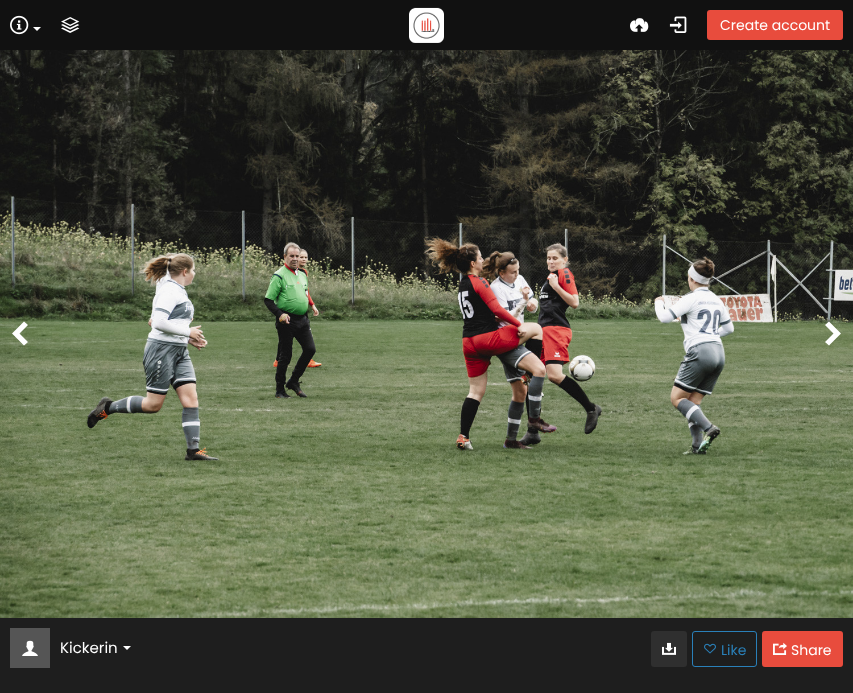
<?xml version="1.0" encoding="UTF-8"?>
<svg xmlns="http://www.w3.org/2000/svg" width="853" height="693">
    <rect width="100%" height="100%" fill="#1E1E1E"/>
    <rect x="0" y="0" width="853" height="50" fill="#111111"/>
    <image x="10" y="15" width="19" height="20" href="img_01.png"/>
    <path d="M 33 27 H 41 L 37 31 Z" fill="#FFFFFF"/>
    <image x="61" y="17" width="19" height="16" href="img_02.png"/>
    <image x="409" y="7" width="35" height="36" href="img_03.png"/>
    <image x="630" y="18" width="19" height="14" href="img_04.png"/>
    <image x="669" y="16" width="18" height="17" href="img_05.png"/>
    <rect x="707" y="10" width="136" height="30" rx="3" fill="#E84C3D"/>
    <text x="720" y="30" font-family="Poppins" font-size="14" fill="#FFFFFF">Create account</text>
    <image x="0" y="50" width="853" height="568" href="img_06.png"/>
    <path d="M 24 321.5 L 12 333.5 L 24 345.5 L 28 342 L 19.5 333.5 L 28 325 Z" fill="#FFFFFF"/>
    <path d="M 829 321.5 L 841 333.5 L 829 345.5 L 825 342 L 833.5 333.5 L 825 325 Z" fill="#FFFFFF"/>
    <rect x="10" y="628" width="40" height="40" fill="#555555"/>
    <image x="22" y="640" width="16" height="16" href="img_07.png"/>
    <text x="60" y="653" font-family="Poppins" font-size="15" fill="#FFFFFF">Kickerin</text>
    <path d="M 123 646 H 131 L 127 650 Z" fill="#FFFFFF"/>
    <rect x="651" y="631" width="36" height="36" rx="3" fill="#2F2F2F"/>
    <image x="662" y="642" width="14" height="13" href="img_08.png"/>
    <rect x="692.5" y="631.5" width="64" height="35" rx="2.5" fill="none" stroke="#2A80B9"/>
    <image x="704" y="643" width="12" height="11" href="img_09.png"/>
    <text x="721" y="655" font-family="Poppins" font-size="14" fill="#2A80B9">Like</text>
    <rect x="762" y="631" width="81" height="36" rx="3" fill="#E84C3D"/>
    <image x="773" y="642" width="14" height="13" href="img_10.png"/>
    <text x="791" y="655" font-family="Poppins" font-size="14" fill="#FFFFFF">Share</text>
</svg>
